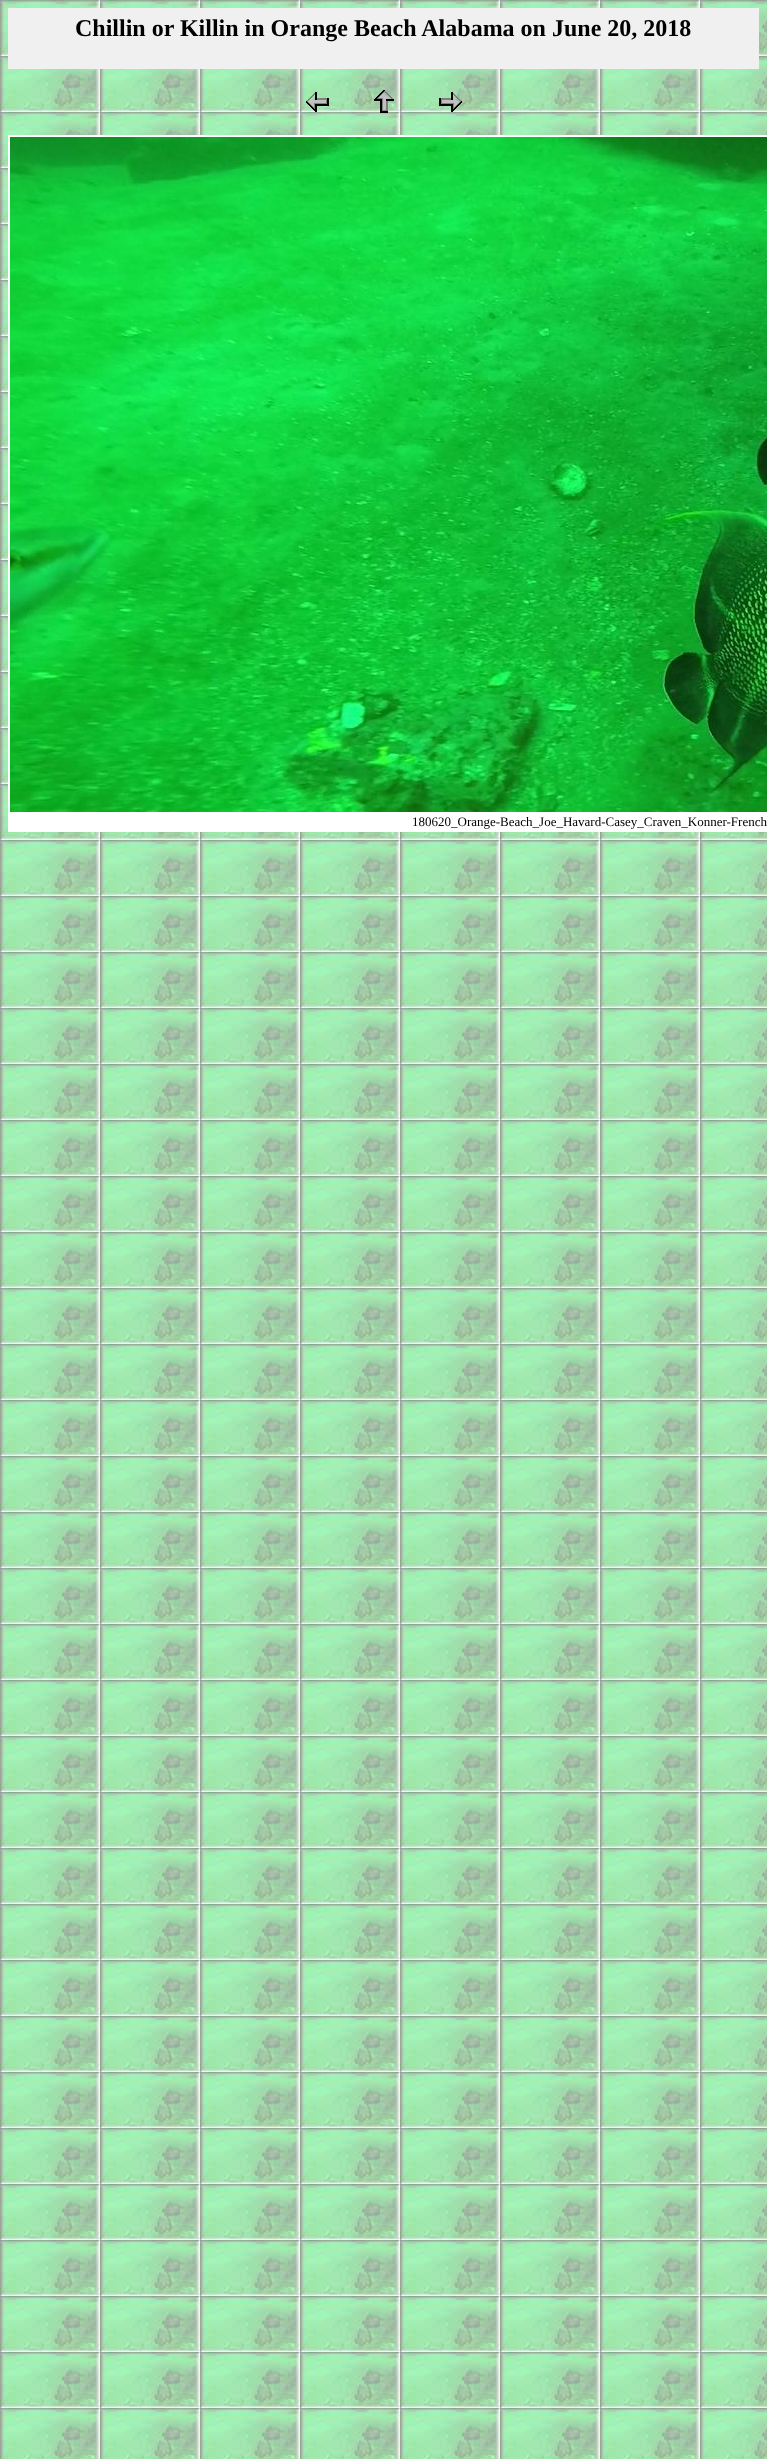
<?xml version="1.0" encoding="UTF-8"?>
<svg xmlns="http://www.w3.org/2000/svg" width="767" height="2459">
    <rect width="100%" height="100%" fill="#FFFFFF"/>
    <image x="0" y="0" width="767" height="2459" href="img_01.png"/>
    <rect x="8" y="8" width="751" height="61" fill="#F0F0F0"/>
    <text x="75" y="36" font-family="Liberation Serif" font-size="24" font-weight="700" fill="#000000">Chillin or Killin in Orange Beach Alabama on June 20, 2018</text>
    <image x="306" y="92" width="23" height="20" href="img_02.png"/>
    <image x="374" y="90" width="20" height="23" href="img_03.png"/>
    <image x="439" y="92" width="23" height="20" href="img_04.png"/>
    <rect x="8" y="135" width="759" height="697" fill="#FFFFFF"/>
    <image x="10" y="137" width="757" height="675" href="img_05.png"/>
    <text x="412" y="826" font-family="Liberation Serif" font-size="13" fill="#000000">180620_Orange-Beach_Joe_Havard-Casey_Craven_Konner-French</text>
</svg>
